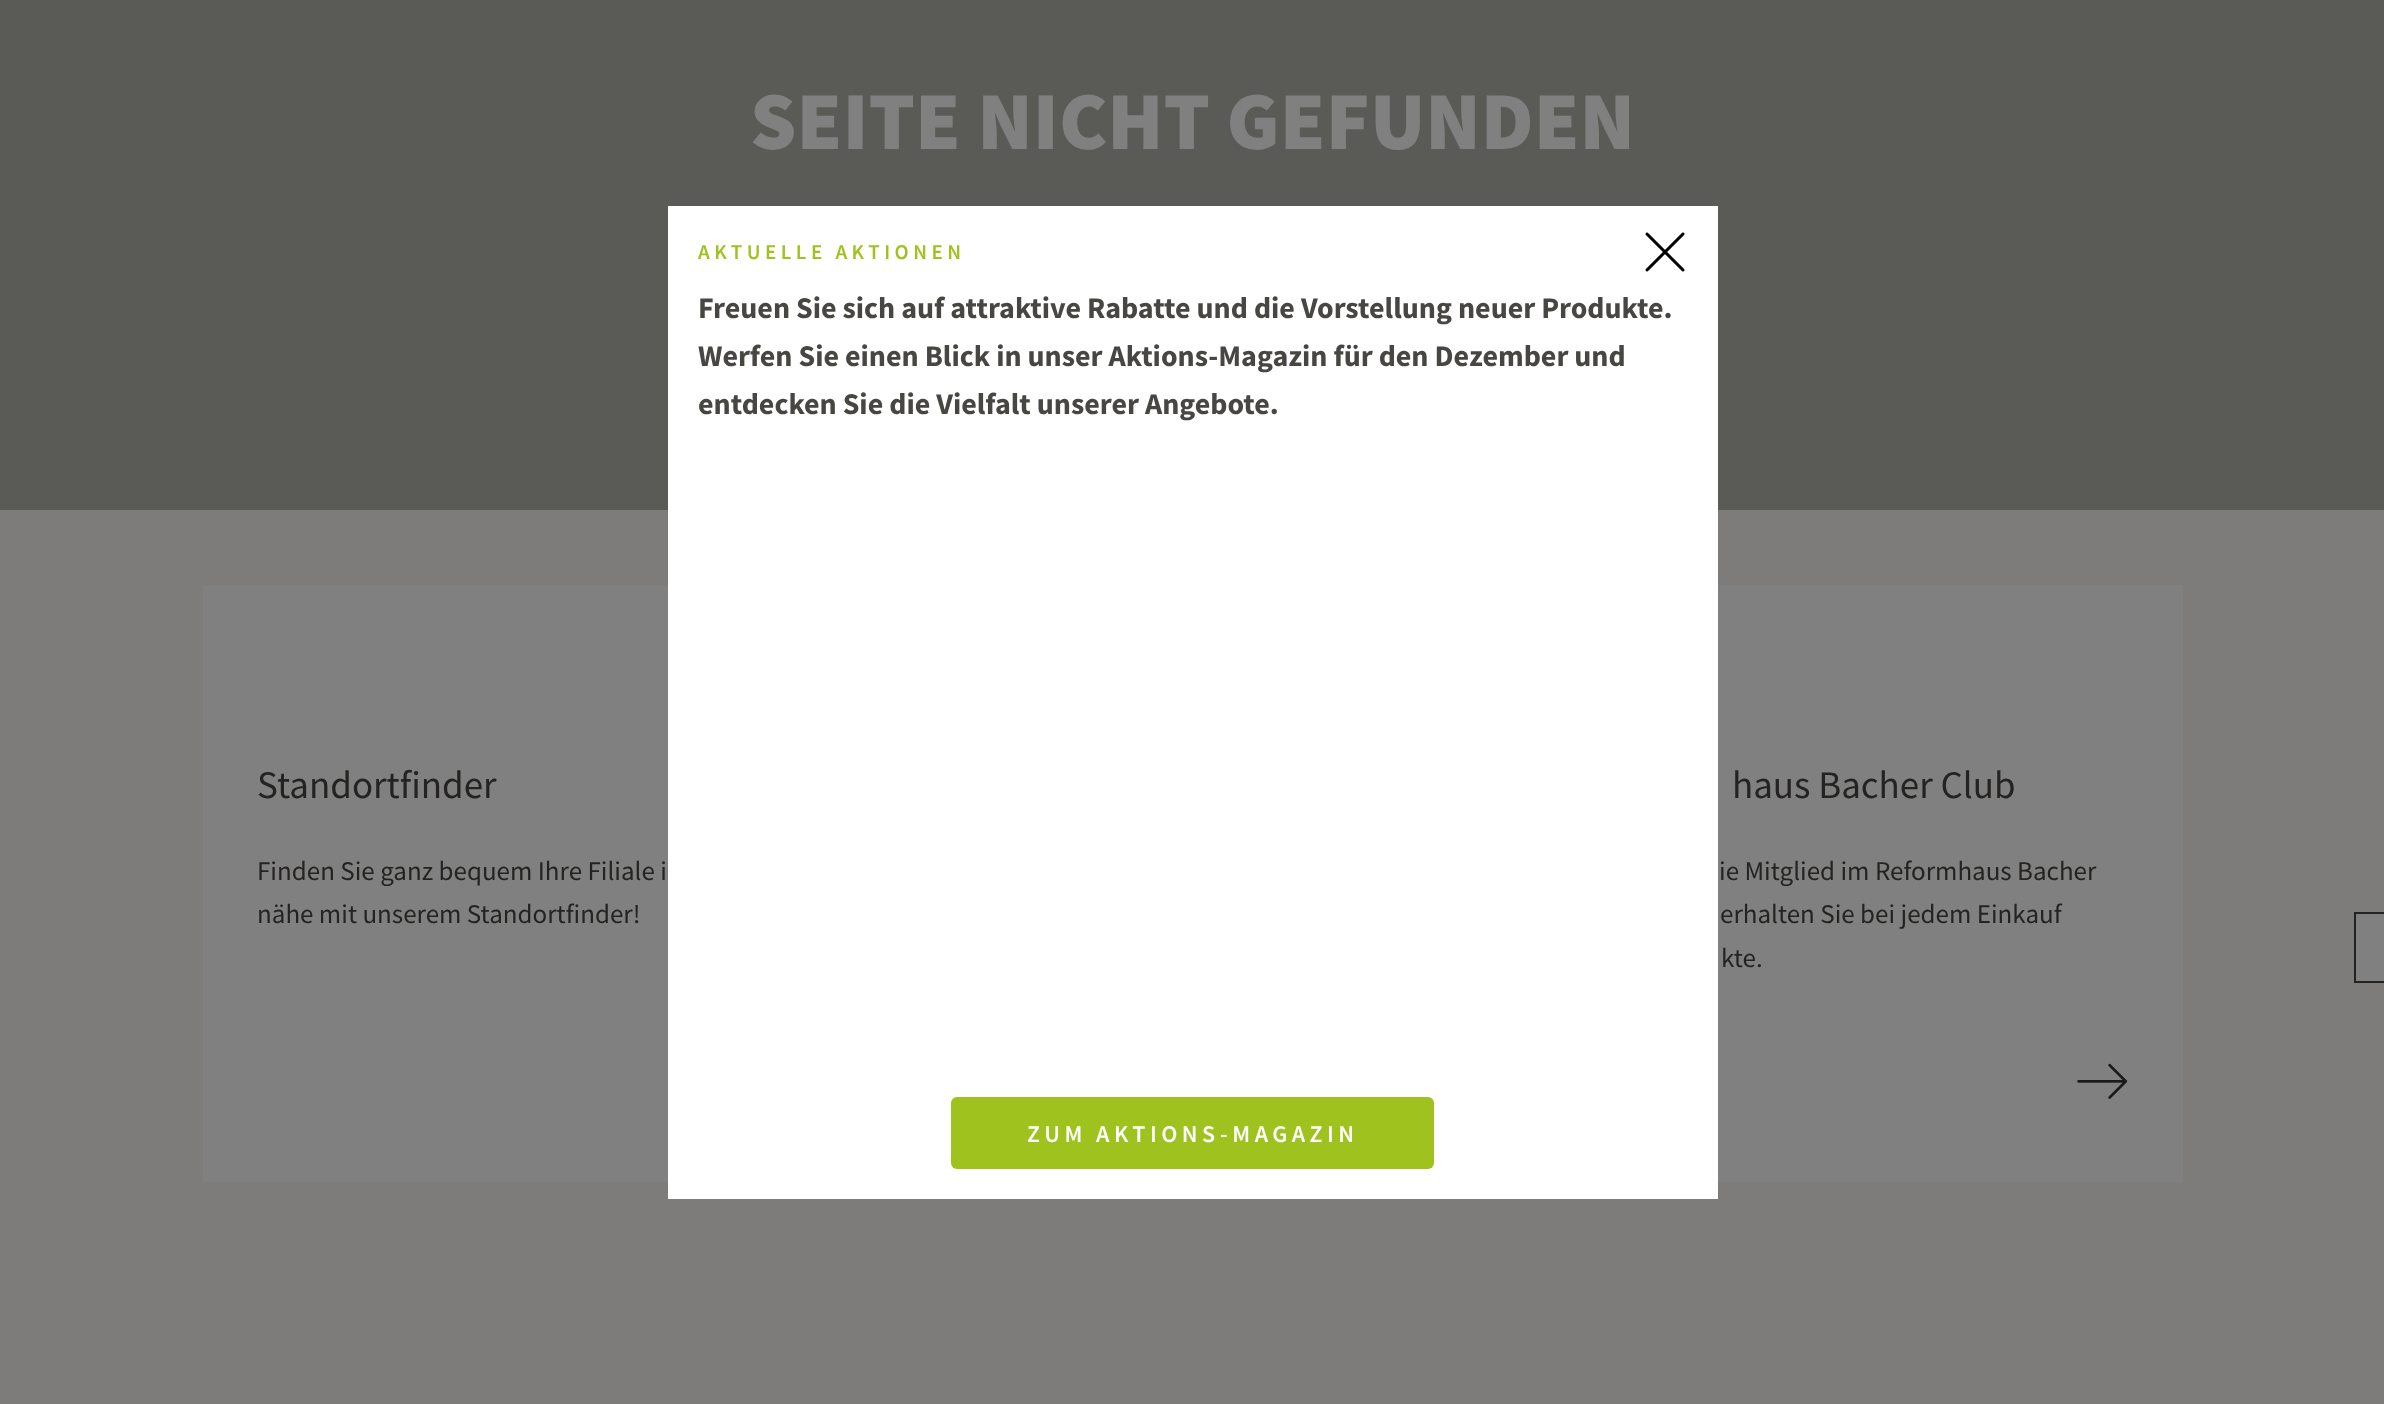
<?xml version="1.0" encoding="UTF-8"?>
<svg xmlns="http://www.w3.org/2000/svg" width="2384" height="1404">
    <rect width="100%" height="100%" fill="#7D7C7B"/>
    <rect x="0" y="0" width="2384" height="510" fill="#5A5A57"/>
    <text x="750" y="149" font-family="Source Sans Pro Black" font-size="82.5" font-weight="900" fill="#808080">SEITE NICHT GEFUNDEN</text>
    <rect x="203" y="585" width="465" height="597" fill="#808080"/>
    <text x="257" y="798" font-family="Source Sans Pro" font-size="39" fill="#242321">Standortfinder</text>
    <text font-family="Source Sans Pro" font-size="27" fill="#242321">
        <tspan x="257" y="880">Finden Sie ganz bequem Ihre Filiale i</tspan>
        <tspan x="257" y="923">nähe mit unserem Standortfinder!</tspan>
    </text>
    <rect x="1718" y="585" width="465" height="597" fill="#808080"/>
    <text x="1732" y="798" font-family="Source Sans Pro" font-size="39" fill="#242321">haus Bacher Club</text>
    <text x="1719" y="880" font-family="Source Sans Pro" font-size="27" fill="#242321">ie Mitglied im Reformhaus Bacher</text>
    <text x="1720" y="923" font-family="Source Sans Pro" font-size="27" fill="#242321">erhalten Sie bei jedem Einkauf</text>
    <text x="1721" y="967" font-family="Source Sans Pro" font-size="27" fill="#242321">kte.</text>
    <image x="2077" y="1063" width="51" height="36" href="img_01.png"/>
    <rect x="668" y="206" width="1050" height="993" fill="#FFFFFF"/>
    <text x="698" y="259" font-family="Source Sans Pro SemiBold" font-size="21" font-weight="600" letter-spacing="4.5" fill="#9FC21F">AKTUELLE AKTIONEN</text>
    <image x="1645" y="232" width="40" height="40" href="img_02.png"/>
    <text font-family="Source Sans Pro" font-size="30" font-weight="700" fill="#474642">
        <tspan x="698" y="318">Freuen Sie sich auf attraktive Rabatte und die Vorstellung neuer Produkte.</tspan>
        <tspan x="698" y="366">Werfen Sie einen Blick in unser Aktions-Magazin für den Dezember und</tspan>
        <tspan x="698" y="414">entdecken Sie die Vielfalt unserer Angebote.</tspan>
    </text>
    <rect x="951" y="1097" width="483" height="72" rx="6" fill="#9FC21F"/>
    <text x="1027" y="1142" font-family="Source Sans Pro SemiBold" font-size="24" font-weight="600" letter-spacing="4.5" fill="#FFFFFF">ZUM AKTIONS-MAGAZIN</text>
    <rect x="2356" y="914" width="28" height="67" fill="#808080"/>
    <rect x="2354" y="912" width="30" height="2" fill="#242321"/>
    <rect x="2354" y="981" width="30" height="2" fill="#242321"/>
    <rect x="2354" y="912" width="2" height="71" fill="#242321"/>
</svg>
